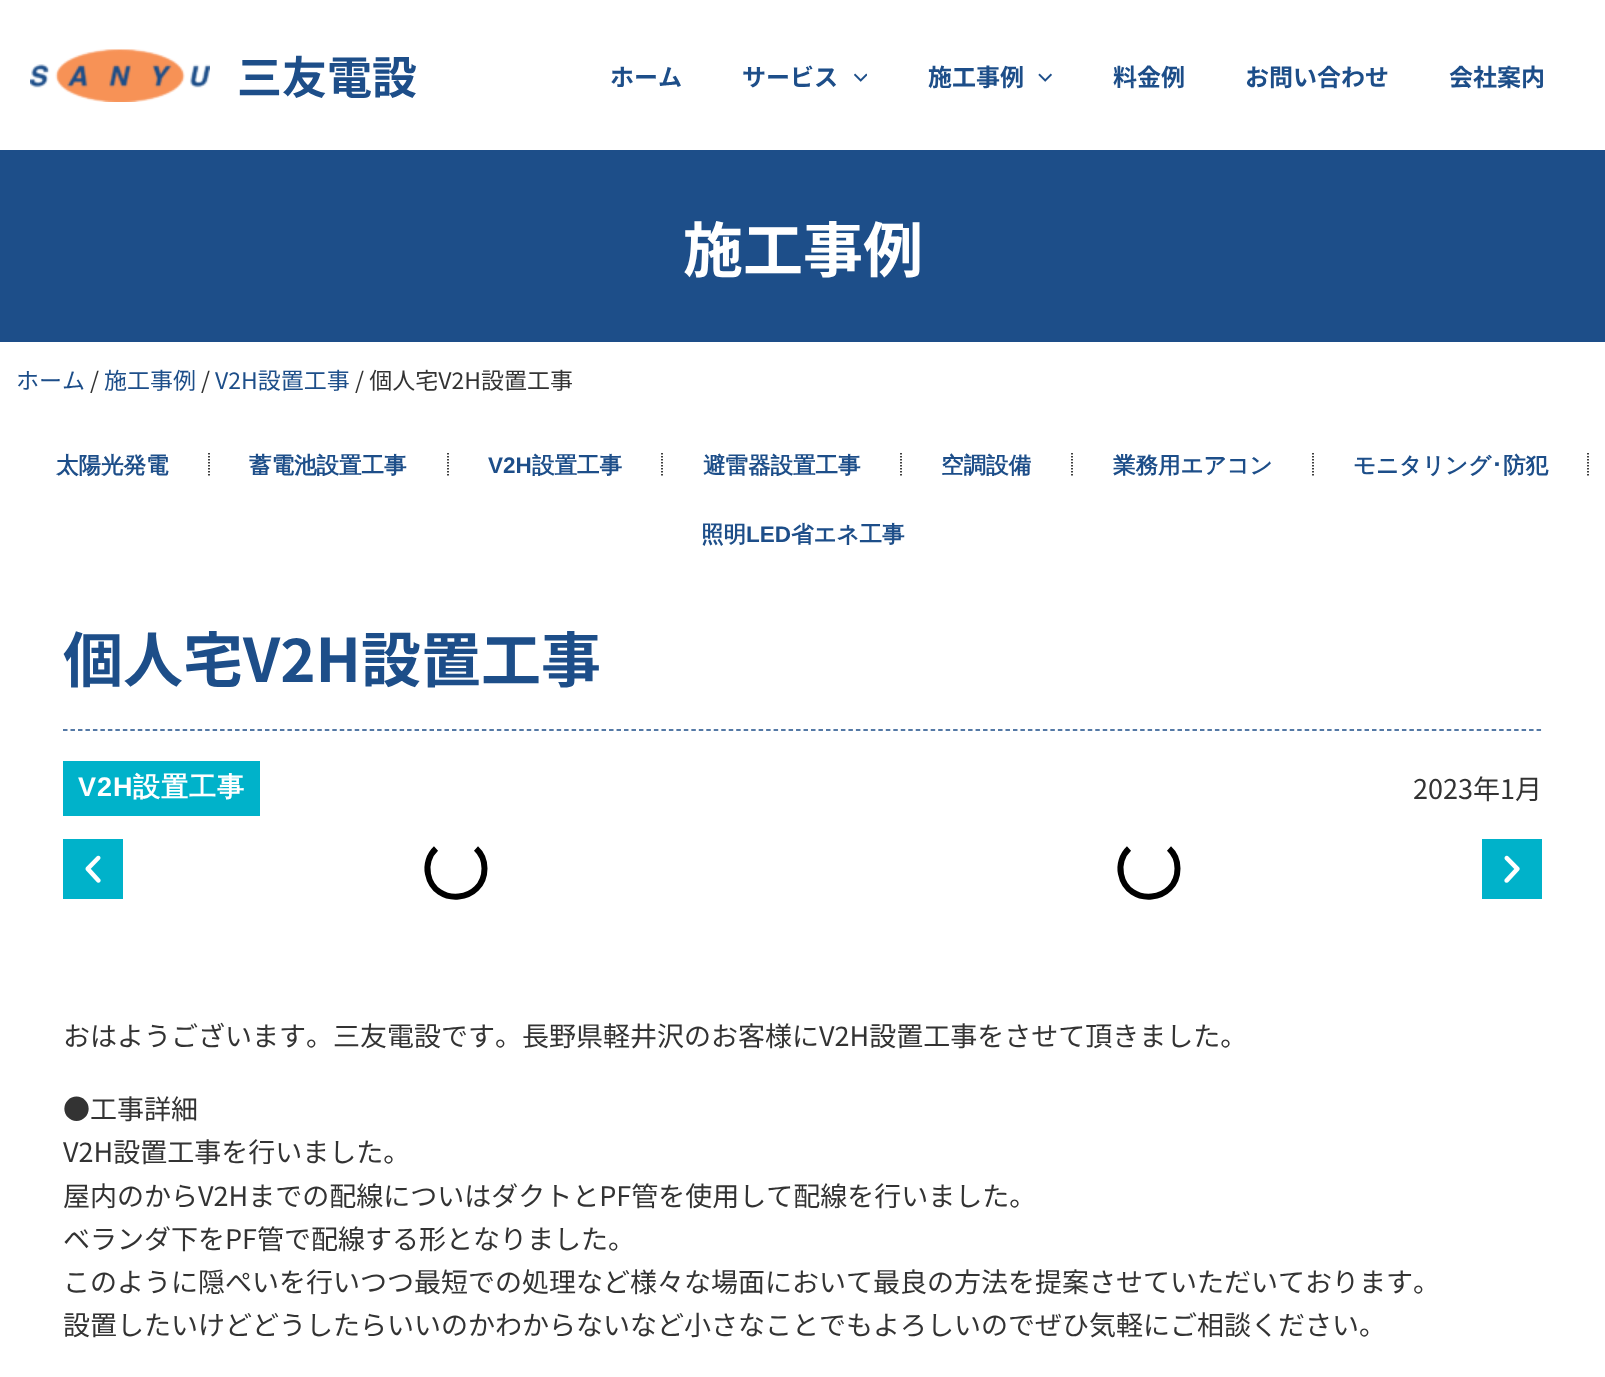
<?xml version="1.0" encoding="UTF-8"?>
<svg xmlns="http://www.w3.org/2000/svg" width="1605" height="1377">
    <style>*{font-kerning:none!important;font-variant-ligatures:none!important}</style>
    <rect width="100%" height="100%" fill="#FFFFFF"/>
    <image x="30" y="49" width="180" height="53" href="img_01.png"/>
    <text x="237" y="94" font-family="Noto Sans JP" font-size="45" font-weight="700" fill="#1D4E89">三友電設</text>
    <text x="610" y="86" font-family="Noto Sans JP" font-size="24" font-weight="700" fill="#1D4E89">ホーム</text>
    <text x="742" y="86" font-family="Noto Sans JP" font-size="24" font-weight="700" fill="#1D4E89">サービス</text>
    <image x="854" y="73" width="13" height="9" href="img_02.png"/>
    <text x="928" y="86" font-family="Noto Sans JP" font-size="24" font-weight="700" fill="#1D4E89">施工事例</text>
    <image x="1038" y="73" width="14" height="9" href="img_03.png"/>
    <text x="1113" y="86" font-family="Noto Sans JP" font-size="24" font-weight="700" fill="#1D4E89">料金例</text>
    <text x="1245" y="86" font-family="Noto Sans JP" font-size="24" font-weight="700" fill="#1D4E89">お問い合わせ</text>
    <text x="1449" y="86" font-family="Noto Sans JP" font-size="24" font-weight="700" fill="#1D4E89">会社案内</text>
    <rect x="0" y="150" width="1605" height="192" fill="#1D4E89"/>
    <text x="683" y="272" font-family="Noto Sans JP" font-size="60" font-weight="700" fill="#FFFFFF">施工事例</text>
    <text x="16" y="389" font-family="Noto Sans JP" font-size="23" fill="#1D4E89">ホーム</text>
    <text x="90" y="389" font-family="Noto Sans JP" font-size="23" fill="#333333">/</text>
    <text x="104" y="389" font-family="Noto Sans JP" font-size="23" fill="#1D4E89">施工事例</text>
    <text x="201" y="389" font-family="Noto Sans JP" font-size="23" fill="#333333">/</text>
    <text x="215" y="389" font-family="Noto Sans JP" font-size="23" fill="#1D4E89">V2H設置工事</text>
    <text x="355" y="389" font-family="Noto Sans JP" font-size="23" fill="#333333">/ 個人宅V2H設置工事</text>
    <text x="56" y="473" font-family="WenQuanYi Zen Hei" font-size="22.5" font-weight="700" fill="#1D4E89">太陽光発電</text>
    <path d="M 209 453 V 477" fill="none" stroke="#000000" stroke-width="1.5" stroke-dasharray="1.5 1.5"/>
    <text x="249" y="473" font-family="WenQuanYi Zen Hei" font-size="22.5" font-weight="700" fill="#1D4E89">蓄電池設置工事</text>
    <path d="M 448 453 V 477" fill="none" stroke="#000000" stroke-width="1.5" stroke-dasharray="1.5 1.5"/>
    <text x="488" y="473" font-family="Liberation Sans" font-size="22.5" font-weight="700" fill="#1D4E89">V2H</text>
    <text x="532" y="473" font-family="WenQuanYi Zen Hei" font-size="22.5" font-weight="700" fill="#1D4E89">設置工事</text>
    <path d="M 662 453 V 477" fill="none" stroke="#000000" stroke-width="1.5" stroke-dasharray="1.5 1.5"/>
    <text x="703" y="473" font-family="WenQuanYi Zen Hei" font-size="22.5" font-weight="700" fill="#1D4E89">避雷器設置工事</text>
    <path d="M 901 453 V 477" fill="none" stroke="#000000" stroke-width="1.5" stroke-dasharray="1.5 1.5"/>
    <text x="941" y="473" font-family="WenQuanYi Zen Hei" font-size="22.5" font-weight="700" fill="#1D4E89">空調設備</text>
    <path d="M 1072 453 V 477" fill="none" stroke="#000000" stroke-width="1.5" stroke-dasharray="1.5 1.5"/>
    <text x="1113" y="473" font-family="WenQuanYi Zen Hei" font-size="22.5" font-weight="700" fill="#1D4E89">業務用エアコン</text>
    <path d="M 1313 453 V 477" fill="none" stroke="#000000" stroke-width="1.5" stroke-dasharray="1.5 1.5"/>
    <text x="1353" y="473" font-family="WenQuanYi Zen Hei" font-size="22.5" font-weight="700" fill="#1D4E89">モニタリング</text>
    <text x="1491" y="473" font-family="IPAPGothic" font-size="22.5" font-weight="700" fill="#1D4E89">･</text>
    <text x="1503" y="473" font-family="WenQuanYi Zen Hei" font-size="22.5" font-weight="700" fill="#1D4E89">防犯</text>
    <path d="M 1588 453 V 477" fill="none" stroke="#000000" stroke-width="1.5" stroke-dasharray="1.5 1.5"/>
    <text x="701" y="542" font-family="WenQuanYi Zen Hei" font-size="22.5" font-weight="700" fill="#1D4E89">照明</text>
    <text x="746" y="542" font-family="Liberation Sans" font-size="22.5" font-weight="700" fill="#1D4E89">LED</text>
    <text x="791" y="542" font-family="WenQuanYi Zen Hei" font-size="22.5" font-weight="700" fill="#1D4E89">省エネ工事</text>
    <text x="63" y="682" font-family="Noto Sans JP" font-size="60" font-weight="700" fill="#1D4E89">個人宅V2H設置工事</text>
    <path d="M 63 730 H 1542" fill="none" stroke="#1D4E89" stroke-width="1.5" stroke-dasharray="4.5 2.98"/>
    <rect x="63" y="761" width="197" height="55" fill="#00B2CA"/>
    <text x="78" y="796" font-family="Liberation Sans" font-size="27" font-weight="700" letter-spacing="1" fill="#FFFFFF">V2H</text>
    <text x="133" y="796" font-family="WenQuanYi Zen Hei" font-size="27" font-weight="700" letter-spacing="1" fill="#FFFFFF">設置工事</text>
    <text x="1413" y="799" font-family="Noto Sans JP" font-size="27" fill="#333333">2023年1月</text>
    <rect x="63" y="839" width="60" height="60" fill="#00B2CA"/>
    <image x="85" y="855" width="16" height="28" href="img_04.png"/>
    <path d="M 476 848.5 C 481.5 853.5 484.5 861 484.5 868.5 C 484.5 902.5 434.5 907.5 428 874 C 426 865 429 855 436 848.5" fill="none" stroke="#000000" stroke-width="6"/>
    <path d="M 1169 848.5 C 1174.5 853.5 1177.5 861 1177.5 868.5 C 1177.5 902.5 1127.5 907.5 1121 874 C 1119 865 1122 855 1129 848.5" fill="none" stroke="#000000" stroke-width="6"/>
    <rect x="1482" y="839" width="60" height="60" fill="#00B2CA"/>
    <image x="1504" y="855" width="16" height="28" href="img_05.png"/>
    <text x="63" y="1046" font-family="Noto Sans JP" font-size="27" fill="#333333">おはようございます。三友電設です</text>
    <text x="495" y="1046" font-family="Noto Sans JP" font-size="27" fill="#333333">。長野県軽井沢のお客様にV2H設置工事をさせて頂きました。</text>
    <text font-family="Noto Sans JP" font-size="27" fill="#333333">
        <tspan x="63" y="1119">●工事詳細</tspan>
        <tspan x="63" y="1162">V2H設置工事を行いました。</tspan>
        <tspan x="63" y="1206">屋内のからV2Hまでの配線についはダクトとPF管を使用して配線を行いました。</tspan>
        <tspan x="63" y="1249">ベランダ下をPF管で配線する形となりました。</tspan>
        <tspan x="63" y="1292">このように隠ぺいを行いつつ最短での処理など様々な場面において最良の方法を提案させていただいております</tspan>
    </text>
    <text x="1413" y="1292" font-family="Noto Sans JP" font-size="27" fill="#333333">。</text>
    <text x="63" y="1335" font-family="Noto Sans JP" font-size="27" fill="#333333">設置したいけどどうしたらいいのかわからないなど小さなことでもよろしいのでぜひ気軽にご相談ください。</text>
</svg>
